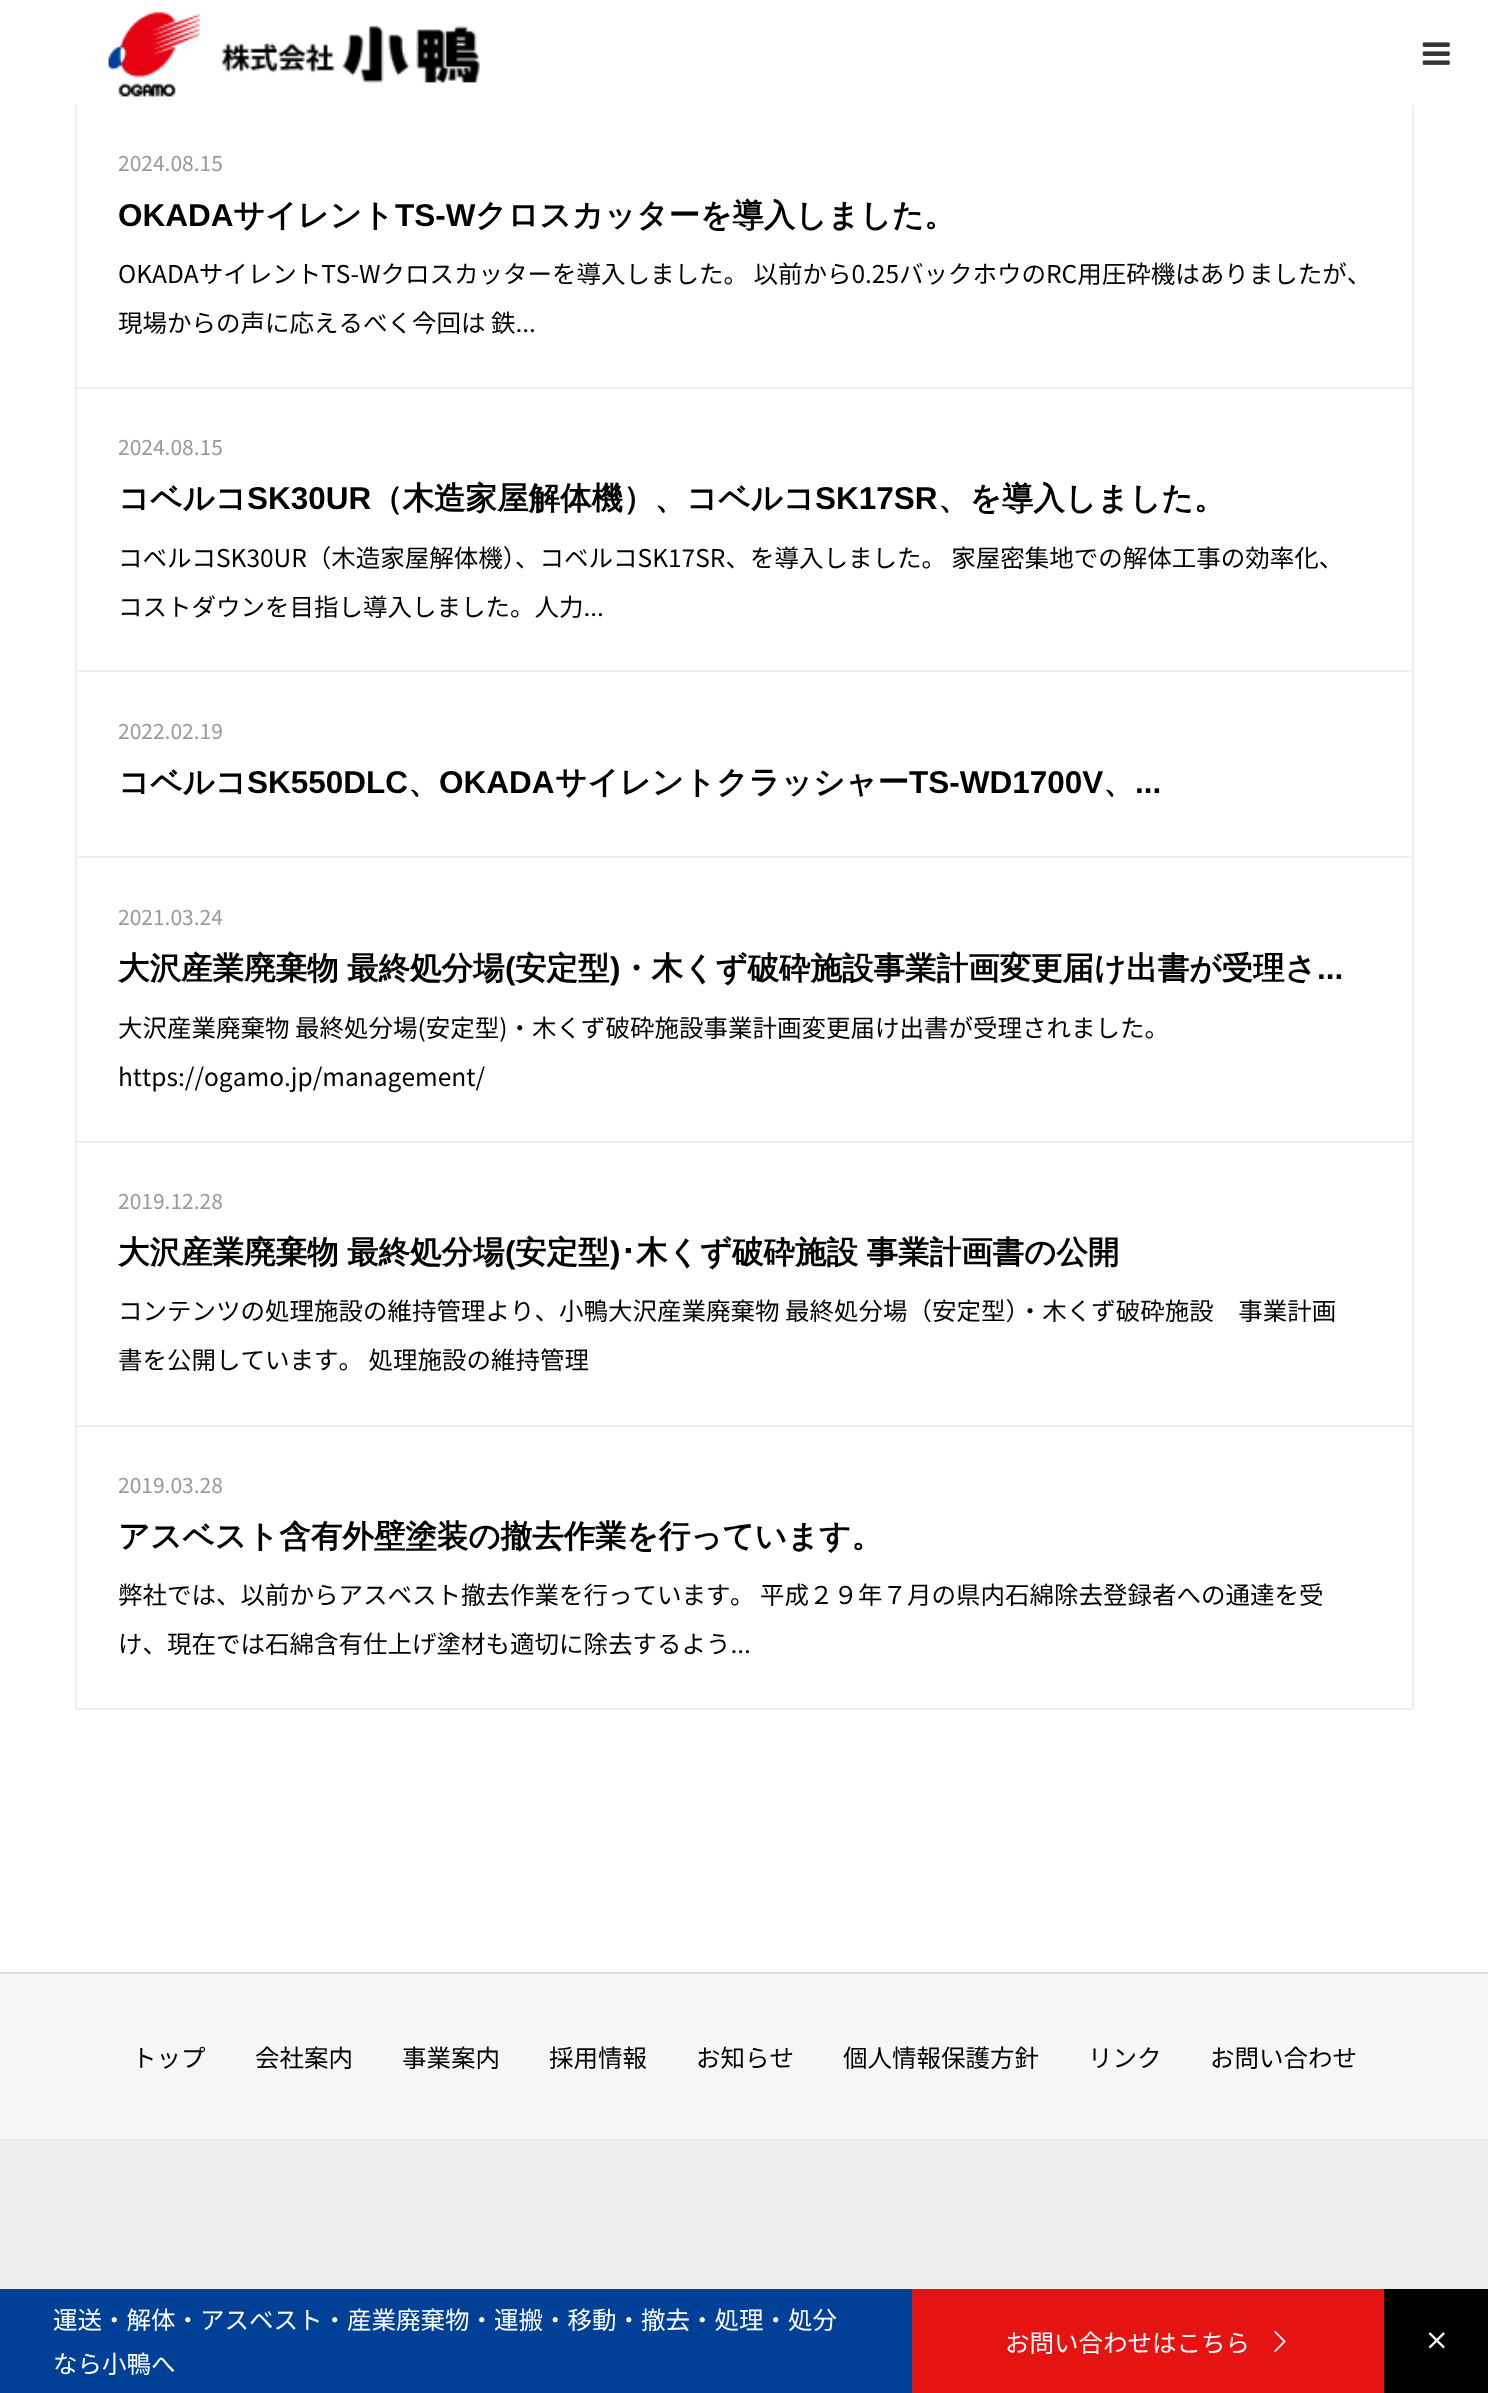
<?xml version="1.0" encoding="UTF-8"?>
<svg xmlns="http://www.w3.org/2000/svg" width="1488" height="2393">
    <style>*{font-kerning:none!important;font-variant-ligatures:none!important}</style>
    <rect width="100%" height="100%" fill="#FFFFFF"/>
    <rect x="76" y="104" width="1337" height="284" fill="none" stroke="#EEEEEE" stroke-width="2"/>
    <rect x="75" y="103" width="1339" height="2" fill="#FFFFFF" fill-opacity="0.9"/>
    <image x="107" y="11" width="373" height="86" href="img_01.png"/>
    <image x="1422" y="42" width="28" height="23" href="img_02.png"/>
    <text x="118" y="171" font-family="Noto Sans JP" font-size="21" font-weight="100" fill="#999999">2024.08.15</text>
    <text x="118" y="226" font-family="Liberation Sans" font-size="31.5" font-weight="700" fill="#000000">OKADA</text>
    <text x="233" y="226" font-family="WenQuanYi Zen Hei" font-size="31.5" font-weight="700" fill="#000000">サイレント</text>
    <text x="395" y="226" font-family="Liberation Sans" font-size="31.5" font-weight="700" fill="#000000">TS-W</text>
    <text x="475" y="226" font-family="WenQuanYi Zen Hei" font-size="31.5" font-weight="700" fill="#000000">クロスカッターを導入しました。</text>
    <text x="118" y="283" font-family="Noto Sans JP" font-size="24.5" font-weight="100" fill="#000000">OKADAサイレントTS-Wクロスカッターを導入しました。 以前から0.25バックホウのRC用圧砕機はありましたが、</text>
    <text x="118" y="332" font-family="Noto Sans JP" font-size="24.5" font-weight="100" fill="#000000">現場からの声に応えるべく今回は 鉄...</text>
    <rect x="1412" y="389" width="2" height="1037" fill="#EEEEEE"/>
    <rect x="75" y="670" width="1339" height="2" fill="#EEEEEE"/>
    <rect x="75" y="389" width="2" height="283" fill="#EEEEEE"/>
    <text x="118" y="455" font-family="Noto Sans JP" font-size="21" font-weight="100" fill="#999999">2024.08.15</text>
    <text x="118" y="509" font-family="WenQuanYi Zen Hei" font-size="31.5" font-weight="700" fill="#000000">コベルコ</text>
    <text x="247" y="509" font-family="Liberation Sans" font-size="31.5" font-weight="700" fill="#000000">SK30UR</text>
    <text x="371" y="509" font-family="WenQuanYi Zen Hei" font-size="31.5" font-weight="700" fill="#000000">（木造家屋解体機）、コベルコ</text>
    <text x="815" y="509" font-family="Liberation Sans" font-size="31.5" font-weight="700" fill="#000000">SK17SR</text>
    <text x="938" y="509" font-family="WenQuanYi Zen Hei" font-size="31.5" font-weight="700" fill="#000000">、を導入しました。</text>
    <text x="118" y="567" font-family="Noto Sans JP" font-size="24.5" font-weight="100" fill="#000000">コベルコSK30UR（木造家屋解体機）、コベルコSK17SR、を導入しました。 家屋密集地での解体工事の効率化、</text>
    <text x="118" y="616" font-family="Noto Sans JP" font-size="24.5" font-weight="100" fill="#000000">コストダウンを目指し導入しました。人力...</text>
    <rect x="75" y="856" width="1339" height="2" fill="#EEEEEE"/>
    <rect x="75" y="672" width="2" height="186" fill="#EEEEEE"/>
    <text x="118" y="739" font-family="Noto Sans JP" font-size="21" font-weight="100" fill="#999999">2022.02.19</text>
    <text x="118" y="793" font-family="WenQuanYi Zen Hei" font-size="31.5" font-weight="700" fill="#000000">コベルコ</text>
    <text x="247" y="793" font-family="Liberation Sans" font-size="31.5" font-weight="700" fill="#000000">SK550DLC</text>
    <text x="408" y="793" font-family="WenQuanYi Zen Hei" font-size="31.5" font-weight="700" fill="#000000">、</text>
    <text x="439" y="793" font-family="Liberation Sans" font-size="31.5" font-weight="700" fill="#000000">OKADA</text>
    <text x="555" y="793" font-family="WenQuanYi Zen Hei" font-size="31.5" font-weight="700" fill="#000000">サイレントクラッシャー</text>
    <text x="909" y="793" font-family="Liberation Sans" font-size="31.5" font-weight="700" fill="#000000">TS-WD1700V</text>
    <text x="1103" y="793" font-family="WenQuanYi Zen Hei" font-size="31.5" font-weight="700" fill="#000000">、</text>
    <text x="1135" y="793" font-family="Liberation Sans" font-size="31.5" font-weight="700" fill="#000000">...</text>
    <rect x="75" y="1141" width="1339" height="2" fill="#EEEEEE"/>
    <rect x="75" y="858" width="2" height="285" fill="#EEEEEE"/>
    <text x="118" y="925" font-family="Noto Sans JP" font-size="21" font-weight="100" fill="#999999">2021.03.24</text>
    <text x="118" y="979" word-spacing="-1" font-family="WenQuanYi Zen Hei" font-size="31.5" font-weight="700" fill="#000000">大沢産業廃棄物 最終処分場</text>
    <text x="505" y="979" font-family="Liberation Sans" font-size="31.5" font-weight="700" fill="#000000">(</text>
    <text x="515" y="979" font-family="WenQuanYi Zen Hei" font-size="31.5" font-weight="700" fill="#000000">安定型</text>
    <text x="610" y="979" font-family="Liberation Sans" font-size="31.5" font-weight="700" fill="#000000">)</text>
    <text x="620" y="979" font-family="WenQuanYi Zen Hei" font-size="31.5" font-weight="700" fill="#000000">・木くず破砕施設事業計画変更届け出書が受理さ</text>
    <text x="1317" y="979" font-family="Liberation Sans" font-size="31.5" font-weight="700" fill="#000000">...</text>
    <text x="118" y="1037" font-family="Noto Sans JP" font-size="24.5" font-weight="100" fill="#000000">大沢産業廃棄物 最終処分場(安定型)・木くず破砕施設事業計画変更届け出書が受理されました。</text>
    <text x="118" y="1086" font-family="Noto Sans JP" font-size="24.5" font-weight="100" fill="#000000">https://ogamo.jp/management/</text>
    <rect x="75" y="1425" width="1339" height="2" fill="#EEEEEE"/>
    <rect x="75" y="1143" width="2" height="283" fill="#EEEEEE"/>
    <text x="118" y="1209" font-family="Noto Sans JP" font-size="21" font-weight="100" fill="#999999">2019.12.28</text>
    <text x="118" y="1263" word-spacing="-1" font-family="WenQuanYi Zen Hei" font-size="31.5" font-weight="700" fill="#000000">大沢産業廃棄物 最終処分場</text>
    <text x="505" y="1263" font-family="Liberation Sans" font-size="31.5" font-weight="700" fill="#000000">(</text>
    <text x="515" y="1263" font-family="WenQuanYi Zen Hei" font-size="31.5" font-weight="700" fill="#000000">安定型</text>
    <text x="610" y="1263" font-family="Liberation Sans" font-size="31.5" font-weight="700" fill="#000000">)</text>
    <text x="620" y="1263" font-family="IPAPGothic" font-size="31.5" font-weight="700" fill="#000000">･</text>
    <text x="636" y="1263" word-spacing="-1" font-family="WenQuanYi Zen Hei" font-size="31.5" font-weight="700" fill="#000000">木くず破砕施設 事業計画書の公開</text>
    <text x="118" y="1320" font-family="Noto Sans JP" font-size="24.5" font-weight="100" fill="#000000">コンテンツの処理施設の維持管理より、⼩鴨⼤沢産業廃棄物 最終処分場（安定型）・⽊くず破砕施設　事業計画</text>
    <text x="118" y="1369" font-family="Noto Sans JP" font-size="24.5" font-weight="100" fill="#000000">書を公開しています。 処理施設の維持管理</text>
    <rect x="1412" y="1426" width="2" height="284" fill="#EEEEEE"/>
    <rect x="75" y="1708" width="1339" height="2" fill="#EEEEEE"/>
    <rect x="75" y="1426" width="2" height="284" fill="#EEEEEE"/>
    <text x="118" y="1493" font-family="Noto Sans JP" font-size="21" font-weight="100" fill="#999999">2019.03.28</text>
    <text x="118" y="1547" font-family="WenQuanYi Zen Hei" font-size="31.5" font-weight="700" fill="#000000">アスベスト含有外壁塗装の撤去作業を行っています。</text>
    <text x="118" y="1604" font-family="Noto Sans JP" font-size="24.5" font-weight="100" fill="#000000">弊社では、以前からアスベスト撤去作業を行っています</text>
    <text x="730" y="1604" font-family="Noto Sans JP" font-size="24.5" font-weight="100" fill="#000000">。 平成２９年７月の県内石綿除去登録者への通達を受</text>
    <text x="118" y="1653" font-family="Noto Sans JP" font-size="24.5" font-weight="100" fill="#000000">け、現在では石綿含有仕上げ塗材も適切に除去するよう...</text>
    <rect x="0" y="2139" width="1488" height="150" fill="#EEEEEE"/>
    <rect x="0" y="1972" width="1488" height="2" fill="#DDDDDD"/>
    <rect x="0" y="1974" width="1488" height="165" fill="#F6F6F6"/>
    <text x="132" y="2067" font-family="Noto Sans JP" font-size="24.5" font-weight="100" fill="#000000">トップ</text>
    <text x="255" y="2067" font-family="Noto Sans JP" font-size="24.5" font-weight="100" fill="#000000">会社案内</text>
    <text x="402" y="2067" font-family="Noto Sans JP" font-size="24.5" font-weight="100" fill="#000000">事業案内</text>
    <text x="549" y="2067" font-family="Noto Sans JP" font-size="24.5" font-weight="100" fill="#000000">採用情報</text>
    <text x="696" y="2067" font-family="Noto Sans JP" font-size="24.5" font-weight="100" fill="#000000">お知らせ</text>
    <text x="843" y="2067" font-family="Noto Sans JP" font-size="24.5" font-weight="100" fill="#000000">個人情報保護方針</text>
    <text x="1088" y="2067" font-family="Noto Sans JP" font-size="24.5" font-weight="100" fill="#000000">リンク</text>
    <text x="1210" y="2067" font-family="Noto Sans JP" font-size="24.5" font-weight="100" fill="#000000">お問い合わせ</text>
    <rect x="0" y="2289" width="912" height="104" fill="#004097"/>
    <text font-family="Noto Sans JP" font-size="24.5" font-weight="100" fill="#FFFFFF">
        <tspan x="53" y="2329">運送・解体・アスベスト・産業廃棄物・運搬・移動・撤去・処理・処分</tspan>
        <tspan x="53" y="2373">なら小鴨へ</tspan>
    </text>
    <rect x="912" y="2289" width="472" height="104" fill="#E51312"/>
    <text x="1005" y="2352" font-family="Noto Sans JP" font-size="24.5" font-weight="100" fill="#FFFFFF">お問い合わせはこちら</text>
    <image x="1274" y="2331" width="12" height="21" href="img_03.png"/>
    <rect x="1384" y="2289" width="104" height="104" fill="#000000"/>
    <image x="1428" y="2332" width="17" height="17" href="img_04.png"/>
</svg>
